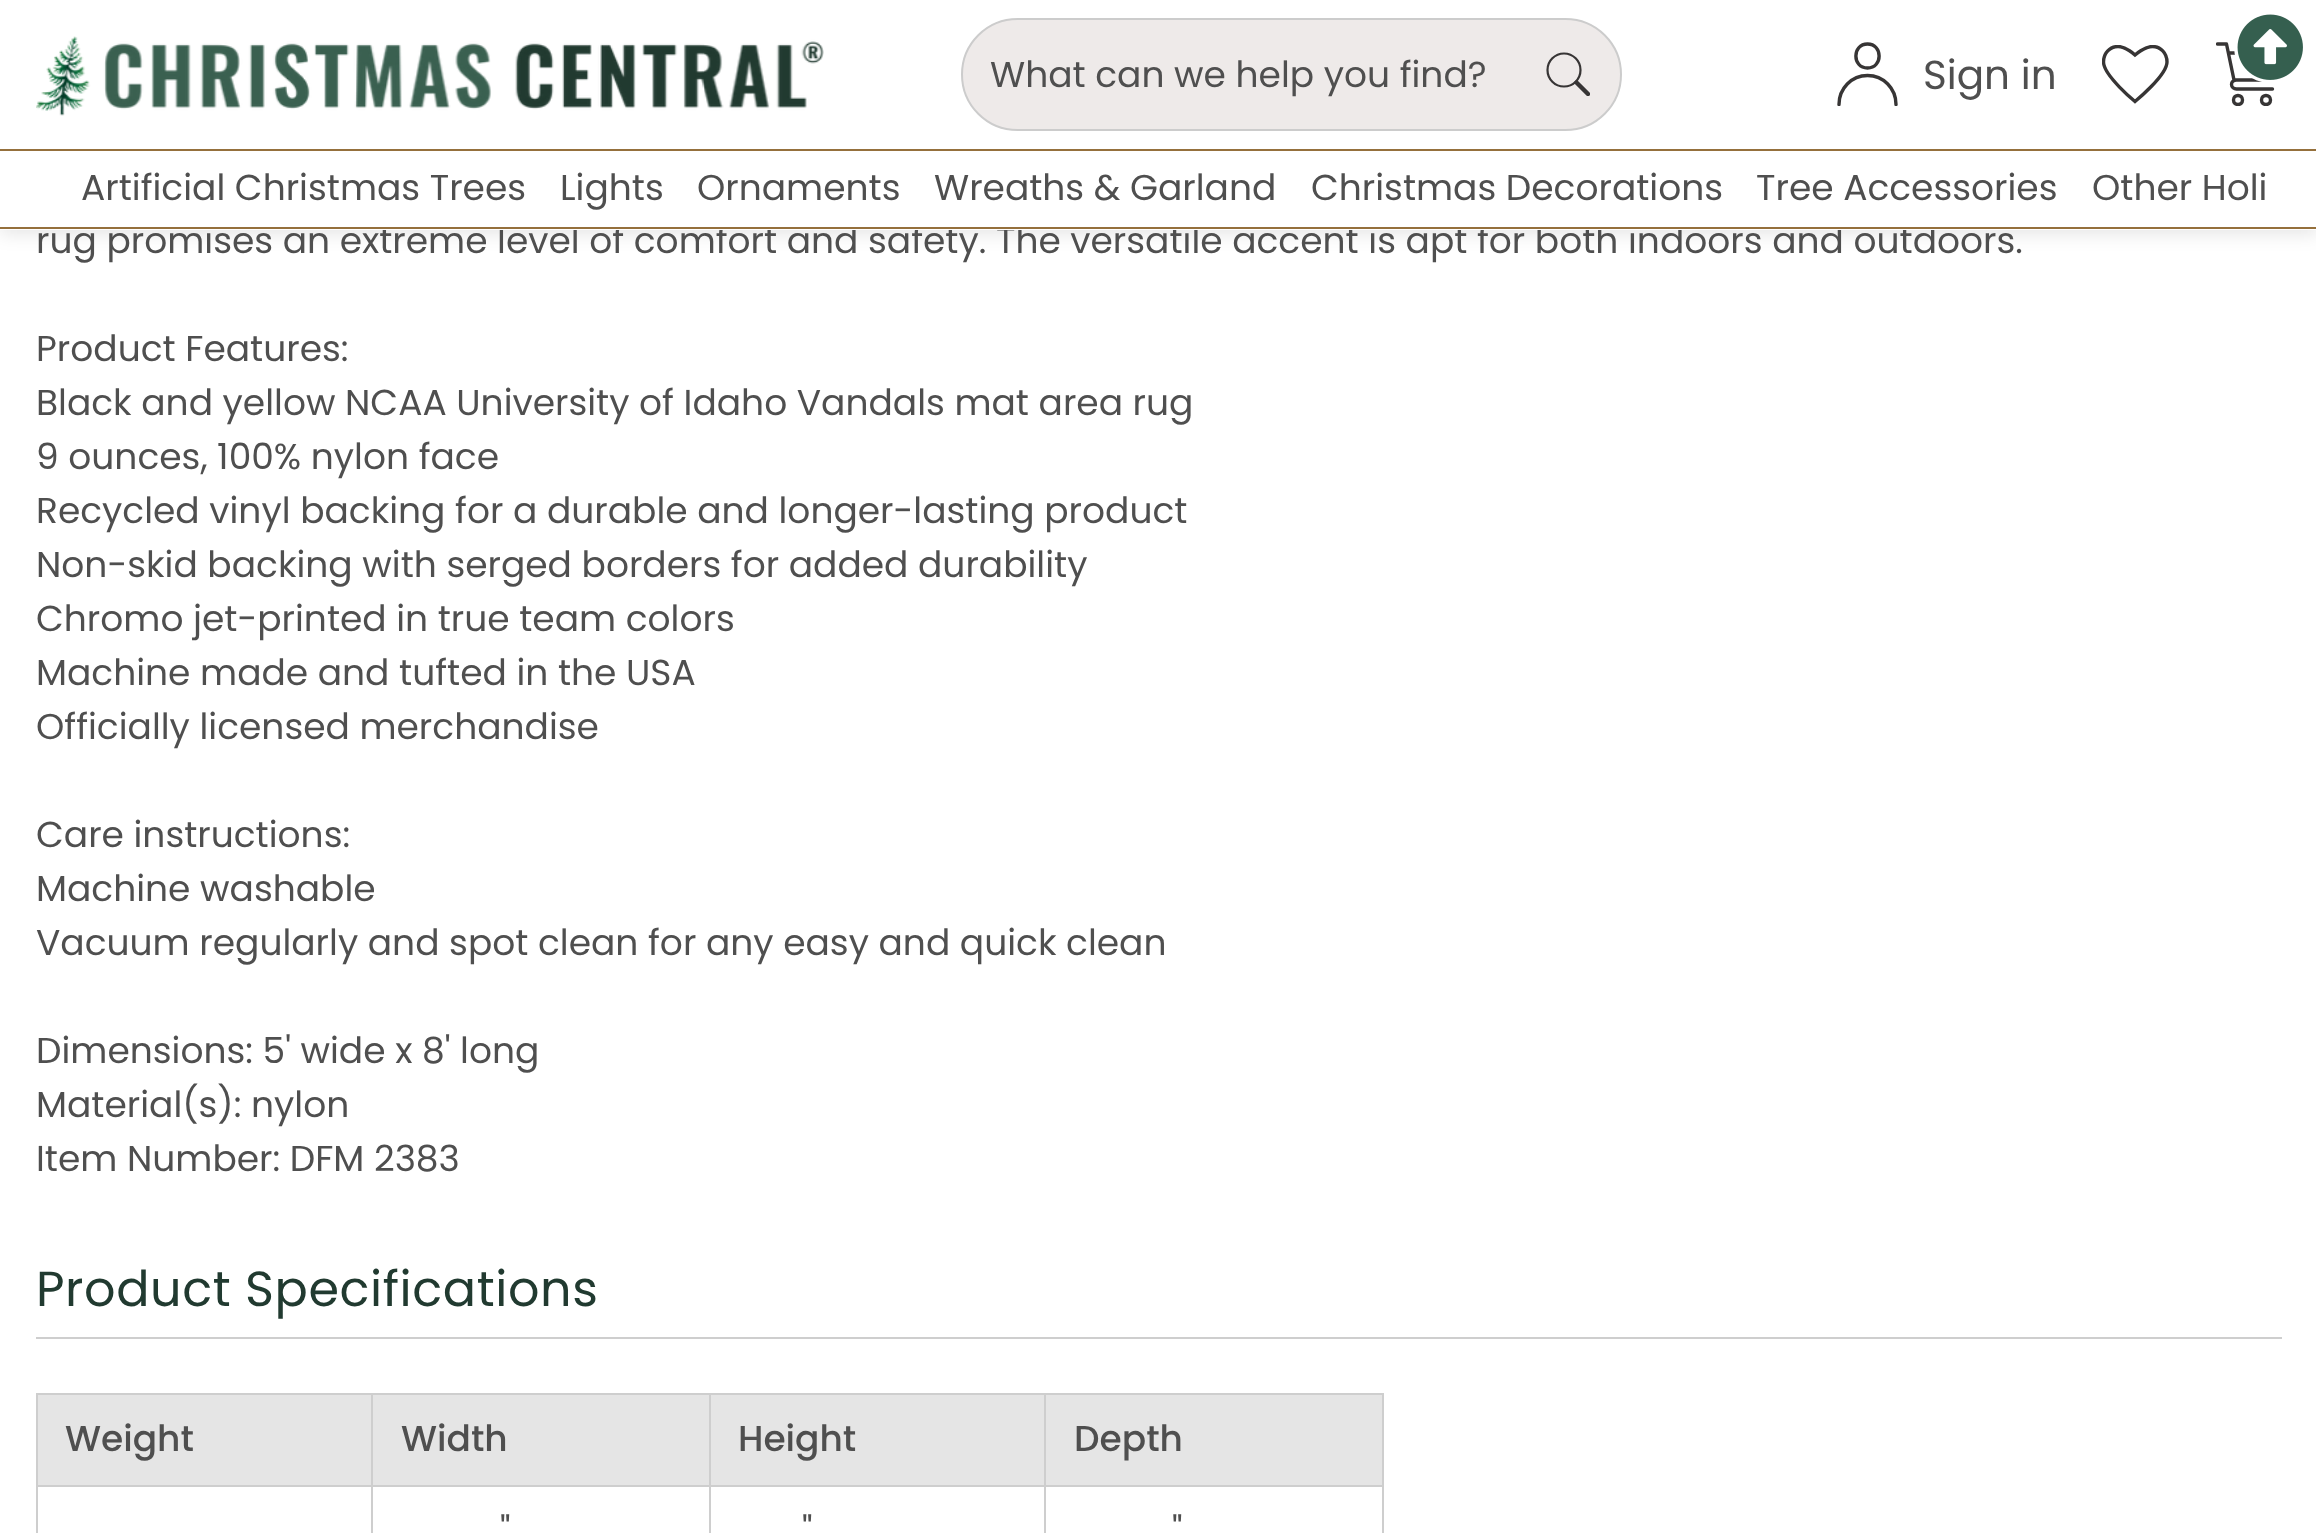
<?xml version="1.0" encoding="UTF-8"?>
<svg xmlns="http://www.w3.org/2000/svg" width="2316" height="1533">
    <defs>
        <filter id="blur1" x="-50%" y="-200%" width="200%" height="500%"><feGaussianBlur stdDeviation="9"/></filter>
        <clipPath id="clip1"><rect x="2216" y="42" width="64" height="64"/></clipPath>
        <clipPath id="clip2"><rect x="1546" y="52" width="44" height="44"/></clipPath>
        <clipPath id="clip3"><rect x="1837" y="42" width="61" height="64"/></clipPath>
        <clipPath id="clip4"><rect x="2102" y="45" width="67" height="59"/></clipPath>
    </defs>
    <rect width="100%" height="100%" fill="#FFFFFF"/>
    <rect x="0" y="5" width="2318" height="229" fill="#000000" fill-opacity="0.1" filter="url(#blur1)"/>
    <text x="36" y="253" font-family="Poppins" font-size="36" fill="#4F4F4F">rug promises an extreme level of comfort and safety. The versatile accent is apt for both indoors and outdoors.</text>
    <rect x="0" y="0" width="2316" height="230" fill="#FFFFFF"/>
    <g clip-path="url(#clip1)">
        <path d="M 2217.5 44 H 2226.5 L 2234 80 H 2272.5 L 2278 53 H 2229 M 2272.5 89 H 2236.5 C 2234 89 2231.5 87 2231.5 84.5 C 2231.5 82 2233.5 80 2236.5 80 M 2270.5 100 C 2270.5 106 2261.5 106 2261.5 100 C 2261.5 94 2270.5 94 2270.5 100 Z M 2242.5 100 C 2242.5 106 2233.5 106 2233.5 100 C 2233.5 94 2242.5 94 2242.5 100 Z" fill="none" stroke="#373535" stroke-width="3.4" stroke-linecap="round" stroke-linejoin="round"/>
    </g>
    <circle cx="2270" cy="47" r="36" fill="#FFFFFF"/>
    <image x="2237" y="14" width="66" height="66" href="img_01.png"/>
    <image x="36" y="36" width="788" height="80" href="img_02.png"/>
    <rect x="962" y="19" width="659" height="111" rx="55.5" fill="#EEEAE9" stroke="#CCCCCC" stroke-width="2"/>
    <text x="990" y="87" font-family="Poppins" font-size="36" fill="#4F4F4F">What can we help you find?</text>
    <circle cx="1564" cy="70" r="16.5" fill="none" stroke="#373535" stroke-width="2.2"/>
    <g clip-path="url(#clip2)">
        <path d="M 1576.5 82.5 L 1588 94" fill="none" stroke="#373535" stroke-width="4.4" stroke-linecap="round" stroke-linejoin="round"/>
    </g>
    <path d="M 1867.5 68 C 1883 68 1883 44 1867.5 44 C 1852 44 1852 68 1867.5 68 Z" fill="none" stroke="#373535" stroke-width="3.4"/>
    <g clip-path="url(#clip3)">
        <path d="M 1896 104.5 C 1896 88.5 1883.5 75.5 1867.5 75.5 C 1851.5 75.5 1839 88.5 1839 104.5" fill="none" stroke="#373535" stroke-width="3.4" stroke-linecap="round" stroke-linejoin="round"/>
    </g>
    <text x="1923" y="89" font-family="Poppins" font-size="40.5" fill="#4F4F4F">Sign in</text>
    <g clip-path="url(#clip4)">
        <path d="M 2167 62 C 2167 53 2160.5 46.5 2152.5 46.5 C 2144.5 46.5 2135 55 2135 55 C 2135 55 2126 46.5 2118 46.5 C 2110 46.5 2103.5 53 2103.5 62 C 2103.5 75.5 2135 101.5 2135 101.5 C 2135 101.5 2167 75.5 2167 62" fill="none" stroke="#373535" stroke-width="3.4"/>
    </g>
    <rect x="0" y="149" width="2316" height="2" fill="#95703C"/>
    <rect x="0" y="227" width="2316" height="2" fill="#95703C"/>
    <text x="81" y="200" font-family="Poppins" font-size="36" fill="#4F4F4F">Artificial Christmas Trees</text>
    <text x="560" y="200" font-family="Poppins" font-size="36" fill="#4F4F4F">Lights</text>
    <text x="697" y="200" font-family="Poppins" font-size="36" fill="#4F4F4F">Ornaments</text>
    <text x="934" y="200" font-family="Poppins" font-size="36" fill="#4F4F4F">Wreaths &amp; Garland</text>
    <text x="1311" y="200" font-family="Poppins" font-size="36" fill="#4F4F4F">Christmas Decorations</text>
    <text x="1756" y="200" font-family="Poppins" font-size="36" fill="#4F4F4F">Tree Accessories</text>
    <text x="2092" y="200" font-family="Poppins" font-size="36" fill="#4F4F4F">Other Holi</text>
    <text font-family="Poppins" font-size="36" fill="#4F4F4F">
        <tspan x="36" y="361">Product Features:</tspan>
        <tspan x="36" y="415">Black and yellow NCAA University of Idaho Vandals mat area rug</tspan>
        <tspan x="36" y="469">9 ounces, 100% nylon face</tspan>
        <tspan x="36" y="523">Recycled vinyl backing for a durable and longer-lasting product</tspan>
        <tspan x="36" y="577">Non-skid backing with serged borders for added durability</tspan>
        <tspan x="36" y="631">Chromo jet-printed in true team colors</tspan>
        <tspan x="36" y="685">Machine made and tufted in the USA</tspan>
        <tspan x="36" y="739">Officially licensed merchandise</tspan>
    </text>
    <text font-family="Poppins" font-size="36" fill="#4F4F4F">
        <tspan x="36" y="847">Care instructions:</tspan>
        <tspan x="36" y="901">Machine washable</tspan>
        <tspan x="36" y="955">Vacuum regularly and spot clean for any easy and quick clean</tspan>
    </text>
    <text font-family="Poppins" font-size="36" fill="#4F4F4F">
        <tspan x="36" y="1063">Dimensions: 5' wide x 8' long</tspan>
        <tspan x="36" y="1117">Material(s): nylon</tspan>
        <tspan x="36" y="1171">Item Number: DFM 2383</tspan>
    </text>
    <rect x="36" y="1337" width="2246" height="2" fill="#CECECE"/>
    <text x="36" y="1306" font-family="Poppins" font-size="49.25" letter-spacing="0.6" fill="#213A30">Product Specifications</text>
    <rect x="36" y="1393" width="1348" height="2" fill="#CECECE"/>
    <rect x="1382" y="1393" width="2" height="140" fill="#CECECE"/>
    <rect x="36" y="1393" width="2" height="140" fill="#CECECE"/>
    <rect x="38" y="1395" width="1344" height="90" fill="#E5E5E5"/>
    <rect x="1044" y="1485" width="2" height="48" fill="#CECECE"/>
    <rect x="1044" y="1485" width="340" height="2" fill="#CECECE"/>
    <rect x="1044" y="1393" width="2" height="94" fill="#CECECE"/>
    <rect x="709" y="1485" width="2" height="48" fill="#CECECE"/>
    <rect x="709" y="1485" width="337" height="2" fill="#CECECE"/>
    <rect x="709" y="1393" width="2" height="94" fill="#CECECE"/>
    <rect x="371" y="1485" width="2" height="48" fill="#CECECE"/>
    <rect x="371" y="1485" width="340" height="2" fill="#CECECE"/>
    <rect x="371" y="1393" width="2" height="94" fill="#CECECE"/>
    <rect x="36" y="1485" width="338" height="2" fill="#CECECE"/>
    <text x="65" y="1451" font-family="Poppins" font-size="36" font-weight="500" fill="#4F4F4F">Weight</text>
    <text x="401" y="1451" font-family="Poppins" font-size="36" font-weight="500" fill="#4F4F4F">Width</text>
    <text x="738" y="1451" font-family="Poppins" font-size="36" font-weight="500" fill="#4F4F4F">Height</text>
    <text x="1074" y="1451" font-family="Poppins" font-size="36" font-weight="500" fill="#4F4F4F">Depth</text>
    <text x="500" y="1543" font-family="Poppins" font-size="36" fill="#4F4F4F">"</text>
    <text x="802" y="1543" font-family="Poppins" font-size="36" fill="#4F4F4F">"</text>
    <text x="1172" y="1543" font-family="Poppins" font-size="36" fill="#4F4F4F">"</text>
</svg>
